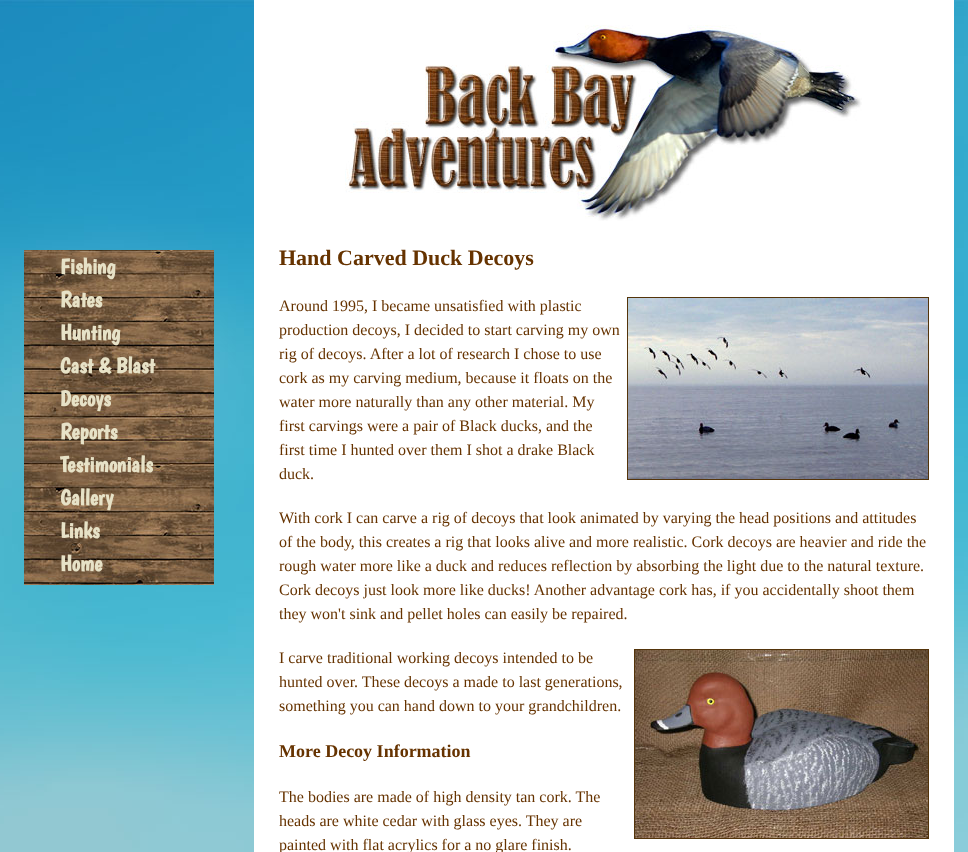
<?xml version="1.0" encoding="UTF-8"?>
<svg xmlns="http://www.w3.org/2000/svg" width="968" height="852">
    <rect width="100%" height="100%" fill="#FFFFFF"/>
    <image x="0" y="0" width="968" height="852" href="img_01.png"/>
    <image x="24" y="250" width="190" height="335" href="img_02.png"/>
    <text font-family="Boogaloo" font-size="22" font-weight="700" fill="#E7E2C7">
        <tspan x="60" y="274">Fishing</tspan>
        <tspan x="60" y="307">Rates</tspan>
        <tspan x="60" y="340">Hunting</tspan>
        <tspan x="60" y="373">Cast &amp; Blast</tspan>
        <tspan x="60" y="406">Decoys</tspan>
        <tspan x="60" y="439">Reports</tspan>
        <tspan x="60" y="472">Testimonials</tspan>
        <tspan x="60" y="505">Gallery</tspan>
        <tspan x="60" y="538">Links</tspan>
        <tspan x="60" y="571">Home</tspan>
    </text>
    <rect x="254" y="0" width="700" height="852" fill="#FFFFFF"/>
    <image x="345" y="25" width="517" height="196" href="img_03.png"/>
    <text x="279" y="265" font-family="Liberation Serif" font-size="22" font-weight="700" fill="#663300">Hand Carved Duck Decoys</text>
    <text x="279" y="311" font-family="Liberation Serif" font-size="16" fill="#663300">Around 1995, I became unsatisfied with plastic</text>
    <rect x="627.5" y="297.5" width="301" height="182" fill="none" stroke="#54340A"/>
    <image x="628" y="298" width="300" height="181" href="img_04.png"/>
    <text font-family="Liberation Serif" font-size="16" fill="#663300">
        <tspan x="279" y="335">production decoys, I decided to start carving my own</tspan>
        <tspan x="279" y="359">rig of decoys. After a lot of research I chose to use</tspan>
        <tspan x="279" y="383">cork as my carving medium, because it floats on the</tspan>
        <tspan x="279" y="407">water more naturally than any other material. My</tspan>
        <tspan x="279" y="431">first carvings were a pair of Black ducks, and the</tspan>
        <tspan x="279" y="455">first time I hunted over them I shot a drake Black</tspan>
        <tspan x="279" y="479">duck.</tspan>
    </text>
    <text font-family="Liberation Serif" font-size="16" fill="#663300">
        <tspan x="279" y="523">With cork I can carve a rig of decoys that look animated by varying the head positions and attitudes</tspan>
        <tspan x="279" y="547">of the body, this creates a rig that looks alive and more realistic. Cork decoys are heavier and ride the</tspan>
        <tspan x="279" y="571">rough water more like a duck and reduces reflection by absorbing the light due to the natural texture.</tspan>
        <tspan x="279" y="595">Cork decoys just look more like ducks! Another advantage cork has, if you accidentally shoot them</tspan>
        <tspan x="279" y="619">they won't sink and pellet holes can easily be repaired.</tspan>
    </text>
    <text x="279" y="663" font-family="Liberation Serif" font-size="16" fill="#663300">I carve traditional working decoys intended to be</text>
    <rect x="634.5" y="649.5" width="294" height="189" fill="none" stroke="#54340A"/>
    <image x="635" y="650" width="293" height="188" href="img_05.png"/>
    <text font-family="Liberation Serif" font-size="16" fill="#663300">
        <tspan x="279" y="687">hunted over. These decoys a made to last generations,</tspan>
        <tspan x="279" y="711">something you can hand down to your grandchildren.</tspan>
    </text>
    <text x="279" y="757" font-family="Liberation Serif" font-size="18" font-weight="700" fill="#663300">More Decoy Information</text>
    <text font-family="Liberation Serif" font-size="16" fill="#663300">
        <tspan x="279" y="802">The bodies are made of high density tan cork. The</tspan>
        <tspan x="279" y="826">heads are white cedar with glass eyes. They are</tspan>
        <tspan x="279" y="850">painted with flat acrylics for a no glare finish.</tspan>
    </text>
</svg>
